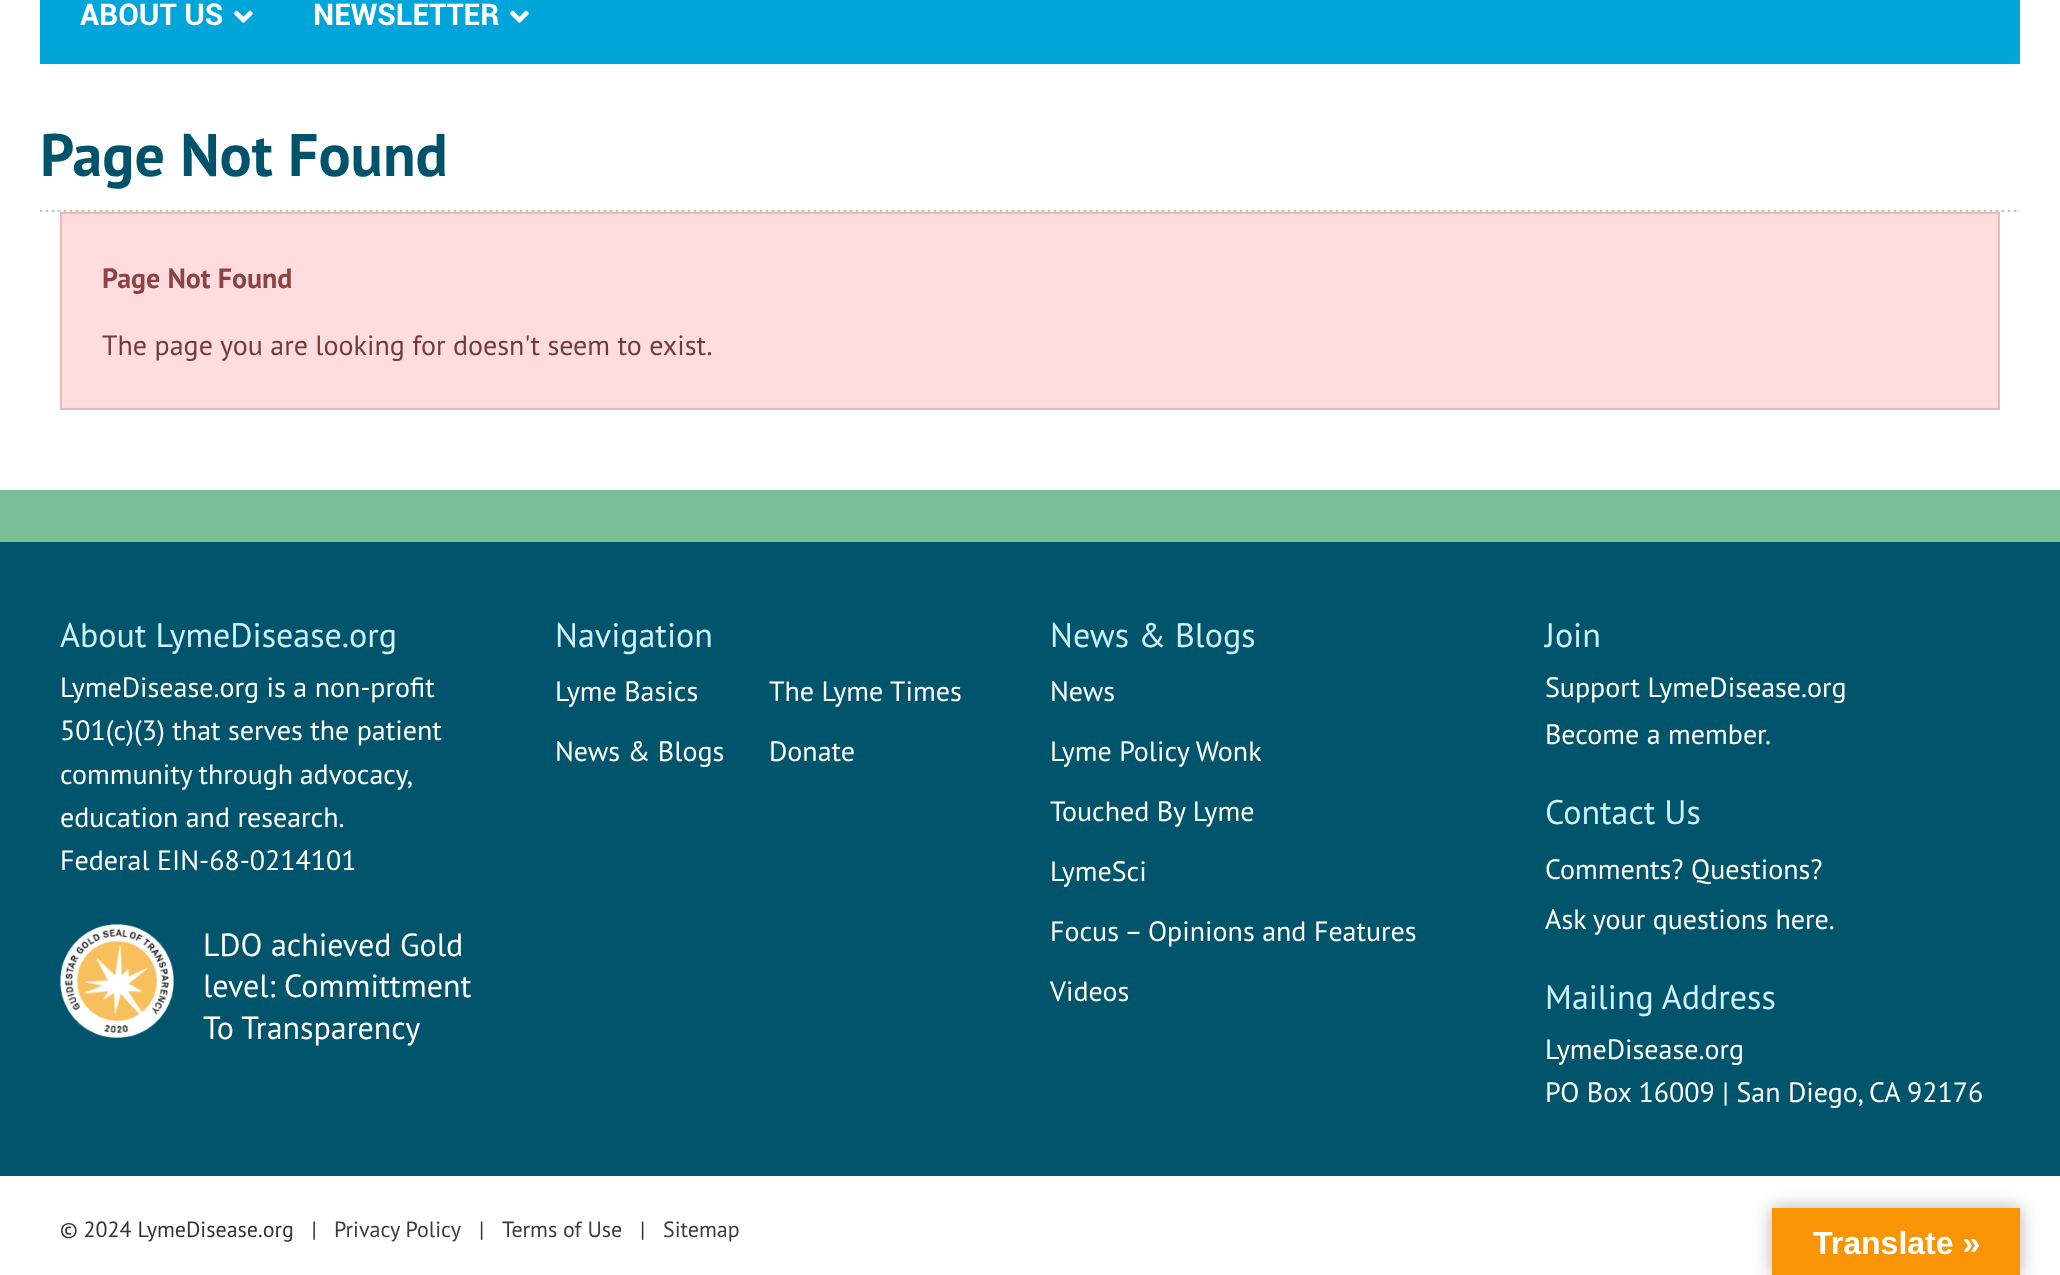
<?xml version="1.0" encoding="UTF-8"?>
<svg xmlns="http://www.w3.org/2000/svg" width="2060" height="1275">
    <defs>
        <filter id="blur1" x="-50%" y="-200%" width="200%" height="500%"><feGaussianBlur stdDeviation="9"/></filter>
    </defs>
    <rect width="100%" height="100%" fill="#FFFFFF"/>
    <rect x="40" y="0" width="1980" height="64" fill="#00A5DA"/>
    <text x="80" y="25" font-family="Roboto" font-size="30" font-weight="700" fill="#FFFFFF">ABOUT US</text>
    <image x="234" y="10" width="19" height="13" href="img_01.png"/>
    <text x="313" y="25" font-family="Roboto" font-size="30" font-weight="700" fill="#FFFFFF">NEWSLETTER</text>
    <image x="510" y="10" width="19" height="13" href="img_01.png"/>
    <image x="40" y="210" width="1980" height="2" href="img_02.png"/>
    <text x="40" y="176" font-family="PT Sans" font-size="60" font-weight="700" fill="#00536B">Page Not Found</text>
    <rect x="61" y="213" width="1938" height="196" fill="#FFDCDD" stroke="#E9B9BB" stroke-width="2"/>
    <text x="102" y="288" font-family="PT Sans" font-size="28" font-weight="700" fill="#8D4345">Page Not Found</text>
    <text x="102" y="355" font-family="PT Sans" font-size="28" fill="#713A3C">The page you are looking for doesn't seem to exist.</text>
    <rect x="0" y="490" width="2060" height="52" fill="#7CBE98"/>
    <rect x="0" y="542" width="2060" height="634" fill="#00546B"/>
    <text x="60" y="647" font-family="PT Sans" font-size="34" fill="#CCF1FB">About LymeDisease.org</text>
    <text font-family="PT Sans" font-size="28" fill="#FFFFFF">
        <tspan x="60" y="697">LymeDisease.org is a non-profit</tspan>
        <tspan x="60" y="740">501(c)(3) that serves the patient</tspan>
        <tspan x="60" y="784" word-spacing="-1">community through advocacy,</tspan>
        <tspan x="60" y="827">education and research.</tspan>
        <tspan x="60" y="870">Federal EIN-68-0214101</tspan>
    </text>
    <image x="60" y="924" width="114" height="114" href="img_03.png"/>
    <text font-family="PT Sans" font-size="32" fill="#FFFFFF">
        <tspan x="203" y="956">LDO achieved Gold</tspan>
        <tspan x="203" y="997">level: Committment</tspan>
        <tspan x="203" y="1039">To Transparency</tspan>
    </text>
    <text x="555" y="647" font-family="PT Sans" font-size="34" fill="#CCF1FB">Navigation</text>
    <text x="555" y="701" font-family="PT Sans" font-size="28" fill="#FFFFFF">Lyme Basics</text>
    <text x="769" y="701" font-family="PT Sans" font-size="28" fill="#FFFFFF">The Lyme Times</text>
    <text x="555" y="761" font-family="PT Sans" font-size="28" fill="#FFFFFF">News &amp; Blogs</text>
    <text x="769" y="761" font-family="PT Sans" font-size="28" fill="#FFFFFF">Donate</text>
    <text x="1050" y="647" font-family="PT Sans" font-size="34" fill="#CCF1FB">News &amp; Blogs</text>
    <text x="1050" y="701" font-family="PT Sans" font-size="28" fill="#FFFFFF">News</text>
    <text x="1050" y="761" font-family="PT Sans" font-size="28" fill="#FFFFFF">Lyme Policy Wonk</text>
    <text x="1050" y="821" font-family="PT Sans" font-size="28" fill="#FFFFFF">Touched By Lyme</text>
    <text x="1050" y="881" font-family="PT Sans" font-size="28" fill="#FFFFFF">LymeSci</text>
    <text x="1050" y="941" font-family="PT Sans" font-size="28" fill="#FFFFFF">Focus – Opinions and Features</text>
    <text x="1050" y="1001" font-family="PT Sans" font-size="28" fill="#FFFFFF">Videos</text>
    <text x="1545" y="647" font-family="PT Sans" font-size="34" fill="#CCF1FB">Join</text>
    <text font-family="PT Sans" font-size="28" fill="#FFFFFF">
        <tspan x="1545" y="697">Support LymeDisease.org</tspan>
        <tspan x="1545" y="744">Become a member.</tspan>
    </text>
    <text x="1545" y="824" font-family="PT Sans" font-size="34" fill="#CCF1FB">Contact Us</text>
    <text font-family="PT Sans" font-size="28" fill="#FFFFFF">
        <tspan x="1545" y="879">Comments? Questions?</tspan>
        <tspan x="1545" y="929">Ask your questions here.</tspan>
    </text>
    <text x="1545" y="1009" font-family="PT Sans" font-size="34" fill="#CCF1FB">Mailing Address</text>
    <text font-family="PT Sans" font-size="28" fill="#FFFFFF">
        <tspan x="1545" y="1059">LymeDisease.org</tspan>
        <tspan x="1545" y="1102">PO Box 16009 | San Diego, CA 92176</tspan>
    </text>
    <text x="60" y="1237" font-family="PT Sans" font-size="22" fill="#333333" xml:space="preserve">© 2024 LymeDisease.org   |</text>
    <text x="334" y="1237" font-family="PT Sans" font-size="22" fill="#3B3B3B">Privacy Policy</text>
    <text x="479" y="1237" font-family="PT Sans" font-size="22" fill="#333333">|</text>
    <text x="502" y="1237" font-family="PT Sans" font-size="22" fill="#3B3B3B">Terms of Use</text>
    <text x="640" y="1237" font-family="PT Sans" font-size="22" fill="#333333">|</text>
    <text x="663" y="1237" font-family="PT Sans" font-size="22" fill="#3B3B3B">Sitemap</text>
    <rect x="1772" y="1208" width="248" height="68" fill="#000000" fill-opacity="0.3" filter="url(#blur1)"/>
    <rect x="1772" y="1208" width="248" height="67" fill="#F89406"/>
    <text x="1813" y="1254" font-family="Liberation Sans" font-size="32" font-weight="700" fill="#FFFFFF">Translate »</text>
</svg>
